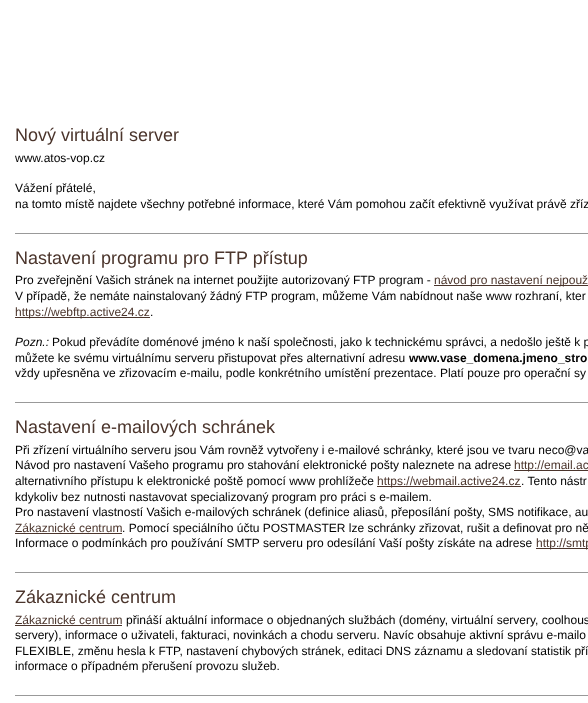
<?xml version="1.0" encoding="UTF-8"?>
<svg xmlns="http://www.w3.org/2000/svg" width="588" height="703">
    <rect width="100%" height="100%" fill="#FFFFFF"/>
    <text x="15" y="141" font-family="Liberation Sans" font-size="18" fill="#4B352C">Nový virtuální server</text>
    <text x="15" y="162" font-family="Liberation Sans" font-size="12" fill="#000000">www.atos-vop.cz</text>
    <text font-family="Liberation Sans" font-size="12" fill="#000000">
        <tspan x="15" y="192">Vážení přátelé,</tspan>
        <tspan x="15" y="208">na tomto místě najdete všechny potřebné informace, které Vám pomohou začít efektivně využívat právě zříz</tspan>
    </text>
    <rect x="15" y="233" width="573" height="1" fill="#999999"/>
    <text x="15" y="264" font-family="Liberation Sans" font-size="18" fill="#4B352C">Nastavení programu pro FTP přístup</text>
    <text x="15" y="284" font-family="Liberation Sans" font-size="12" fill="#000000">Pro zveřejnění Vašich stránek na internet použijte autorizovaný FTP program -</text>
    <rect x="434" y="285" width="154" height="1" fill="#4B352C"/>
    <text x="434" y="284" font-family="Liberation Sans" font-size="12" fill="#4B352C">návod pro nastavení nejpouž</text>
    <text x="15" y="300" font-family="Liberation Sans" font-size="12" fill="#000000">V případě, že nemáte nainstalovaný žádný FTP program, můžeme Vám nabídnout naše www rozhraní, kter</text>
    <rect x="15" y="317" width="135" height="1" fill="#4B352C"/>
    <text x="15" y="316" font-family="Liberation Sans" font-size="12" fill="#4B352C">https://webftp.active24.cz</text>
    <text x="150" y="316" font-family="Liberation Sans" font-size="12" fill="#000000">.</text>
    <text x="15" y="346" font-family="Liberation Sans" font-size="12" font-style="italic" fill="#000000">Pozn.:</text>
    <text x="52" y="346" font-family="Liberation Sans" font-size="12" fill="#000000">Pokud převádíte doménové jméno k naší společnosti, jako k technickému správci, a nedošlo ještě k p</text>
    <text x="15" y="362" font-family="Liberation Sans" font-size="12" fill="#000000">můžete ke svému virtuálnímu serveru přistupovat přes alternativní adresu</text>
    <text x="409" y="362" font-family="Liberation Sans" font-size="12" font-weight="700" fill="#000000">www.vase_domena.jmeno_stro</text>
    <text x="15" y="377" font-family="Liberation Sans" font-size="12" fill="#000000">vždy upřesněna ve zřizovacím e-mailu, podle konkrétního umístění prezentace. Platí pouze pro operační sy</text>
    <rect x="15" y="402" width="573" height="1" fill="#999999"/>
    <text x="15" y="433" font-family="Liberation Sans" font-size="18" fill="#4B352C">Nastavení e-mailových schránek</text>
    <text font-family="Liberation Sans" font-size="12" fill="#000000">
        <tspan x="15" y="454">Při zřízení virtuálního serveru jsou Vám rovněž vytvořeny i e-mailové schránky, které jsou ve tvaru neco@va</tspan>
        <tspan x="15" y="469">Návod pro nastavení Vašeho programu pro stahování elektronické pošty naleznete na adrese</tspan>
    </text>
    <rect x="514" y="470" width="74" height="1" fill="#4B352C"/>
    <text x="514" y="469" font-family="Liberation Sans" font-size="12" fill="#4B352C">http://email.ac</text>
    <text x="15" y="485" font-family="Liberation Sans" font-size="12" fill="#000000">alternativního přístupu k elektronické poště pomocí www prohlížeče</text>
    <rect x="377" y="486" width="144" height="1" fill="#4B352C"/>
    <text x="377" y="485" font-family="Liberation Sans" font-size="12" fill="#4B352C">https://webmail.active24.cz</text>
    <text x="521" y="485" font-family="Liberation Sans" font-size="12" fill="#000000">. Tento nástr</text>
    <text font-family="Liberation Sans" font-size="12" fill="#000000">
        <tspan x="15" y="501">kdykoliv bez nutnosti nastavovat specializovaný program pro práci s e-mailem.</tspan>
        <tspan x="15" y="516">Pro nastavení vlastností Vašich e-mailových schránek (definice aliasů, přeposílání pošty, SMS notifikace, au</tspan>
    </text>
    <text x="15" y="532" font-family="Liberation Sans" font-size="12" fill="#4B352C">Zákaznické centrum</text>
    <rect x="15" y="533" width="107" height="1" fill="#4B352C"/>
    <text x="122" y="532" font-family="Liberation Sans" font-size="12" fill="#000000">. Pomocí speciálního účtu POSTMASTER lze schránky zřizovat, rušit a definovat pro ně</text>
    <text x="15" y="547" font-family="Liberation Sans" font-size="12" fill="#000000">Informace o podmínkách pro používání SMTP serveru pro odesílání Vaší pošty získáte na adrese</text>
    <rect x="536" y="548" width="52" height="1" fill="#4B352C"/>
    <text x="536" y="547" font-family="Liberation Sans" font-size="12" fill="#4B352C">http://smtp</text>
    <rect x="15" y="572" width="573" height="1" fill="#999999"/>
    <text x="15" y="603" font-family="Liberation Sans" font-size="18" fill="#4B352C">Zákaznické centrum</text>
    <text x="15" y="624" font-family="Liberation Sans" font-size="12" fill="#4B352C">Zákaznické centrum</text>
    <rect x="15" y="625" width="107" height="1" fill="#4B352C"/>
    <text x="126" y="624" font-family="Liberation Sans" font-size="12" fill="#000000">přináší aktuální informace o objednaných službách (domény, virtuální servery, coolhous</text>
    <text font-family="Liberation Sans" font-size="12" fill="#000000">
        <tspan x="15" y="639">servery), informace o uživateli, fakturaci, novinkách a chodu serveru. Navíc obsahuje aktivní správu e-mailo</tspan>
        <tspan x="15" y="655">FLEXIBLE, změnu hesla k FTP, nastavení chybových stránek, editaci DNS záznamu a sledovaní statistik pří</tspan>
        <tspan x="15" y="670">informace o případném přerušení provozu služeb.</tspan>
    </text>
    <rect x="15" y="695" width="573" height="1" fill="#999999"/>
</svg>
